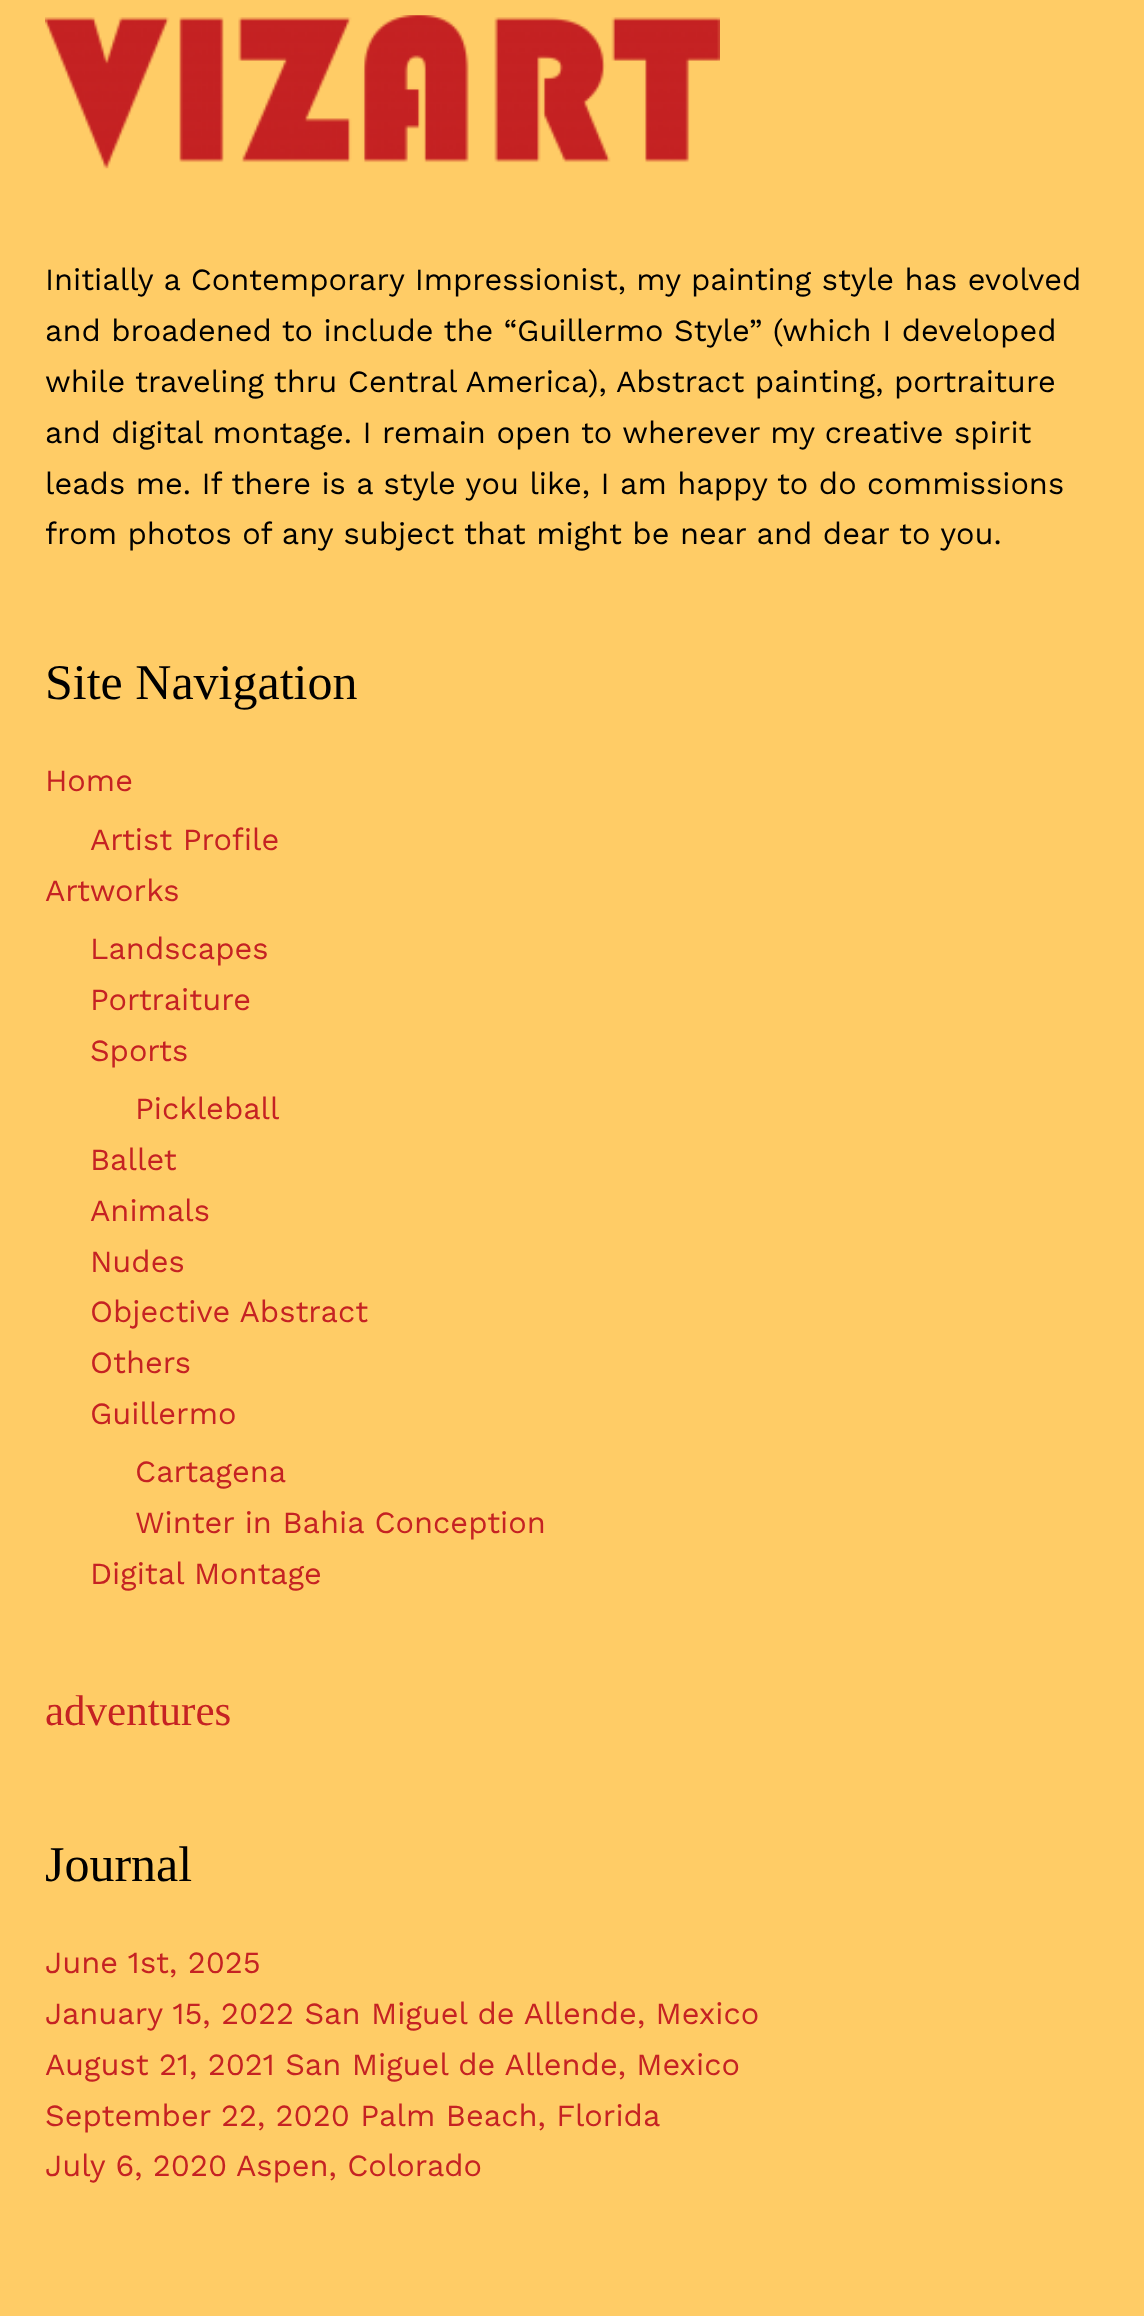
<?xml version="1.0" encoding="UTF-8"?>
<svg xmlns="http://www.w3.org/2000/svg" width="1144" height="2316">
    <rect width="100%" height="100%" fill="#FFCC66"/>
    <image x="45" y="15" width="675" height="154" href="img_01.png"/>
    <text font-family="Work Sans" font-size="30.8" fill="#000000">
        <tspan x="45" y="290">Initially a Contemporary Impressionist, my painting style has evolved</tspan>
        <tspan x="45" y="341">and broadened to include the “Guillermo Style” (which I developed</tspan>
        <tspan x="45" y="392">while traveling thru Central America), Abstract painting, portraiture</tspan>
        <tspan x="45" y="443">and digital montage. I remain open to wherever my creative spirit</tspan>
        <tspan x="45" y="494">leads me. If there is a style you like, I am happy to do commissions</tspan>
        <tspan x="45" y="544">from photos of any subject that might be near and dear to you.</tspan>
    </text>
    <text x="45" y="699" font-family="Liberation Serif" font-size="50" fill="#000000">Site Navigation</text>
    <text x="45" y="791" font-family="Work Sans" font-size="30.8" fill="#C52223">Home</text>
    <text x="90" y="850" font-family="Work Sans" font-size="30.8" fill="#C52223">Artist Profile</text>
    <text x="45" y="901" font-family="Work Sans" font-size="30.8" fill="#C52223">Artworks</text>
    <text font-family="Work Sans" font-size="30.8" fill="#C52223">
        <tspan x="90" y="959">Landscapes</tspan>
        <tspan x="90" y="1010">Portraiture</tspan>
        <tspan x="90" y="1061">Sports</tspan>
    </text>
    <text x="135" y="1119" font-family="Work Sans" font-size="30.8" fill="#C52223">Pickleball</text>
    <text font-family="Work Sans" font-size="30.8" fill="#C52223">
        <tspan x="90" y="1170">Ballet</tspan>
        <tspan x="90" y="1221">Animals</tspan>
        <tspan x="90" y="1272">Nudes</tspan>
        <tspan x="90" y="1322">Objective Abstract</tspan>
        <tspan x="90" y="1373">Others</tspan>
        <tspan x="90" y="1424">Guillermo</tspan>
    </text>
    <text font-family="Work Sans" font-size="30.8" fill="#C52223">
        <tspan x="135" y="1482">Cartagena</tspan>
        <tspan x="135" y="1533">Winter in Bahia Conception</tspan>
    </text>
    <text x="90" y="1584" font-family="Work Sans" font-size="30.8" fill="#C52223">Digital Montage</text>
    <text x="45" y="1725" font-family="Liberation Serif" font-size="43" fill="#C52223">adventures</text>
    <text x="45" y="1881" font-family="Liberation Serif" font-size="50" fill="#000000">Journal</text>
    <text font-family="Work Sans" font-size="30.8" fill="#C52223">
        <tspan x="45" y="1973">June 1st, 2025</tspan>
        <tspan x="45" y="2024">January 15, 2022 San Miguel de Allende, Mexico</tspan>
        <tspan x="45" y="2075">August 21, 2021 San Miguel de Allende, Mexico</tspan>
        <tspan x="45" y="2126">September 22, 2020 Palm Beach, Florida</tspan>
        <tspan x="45" y="2176">July 6, 2020</tspan>
    </text>
    <text x="236" y="2176" font-family="Work Sans" font-size="30.8" fill="#C52223">Aspen, Colorado</text>
</svg>
